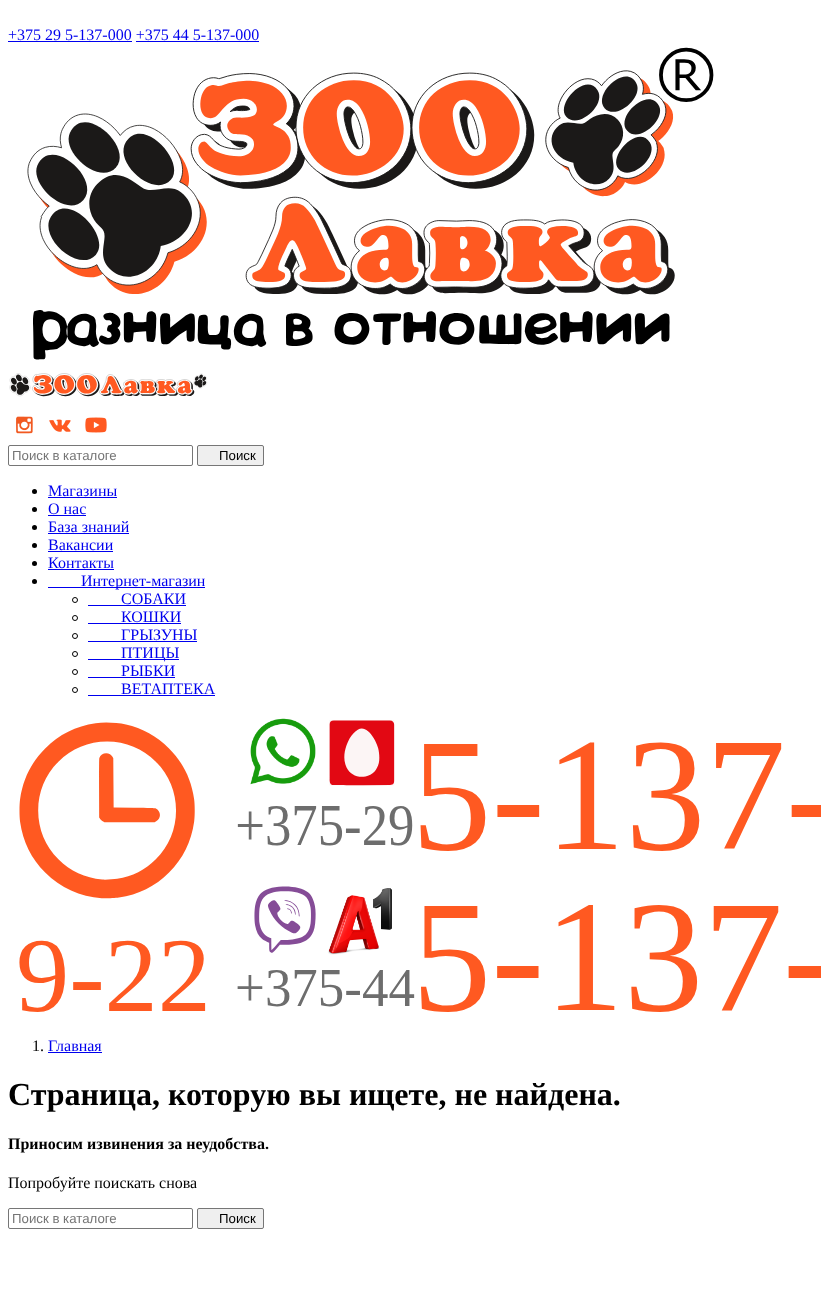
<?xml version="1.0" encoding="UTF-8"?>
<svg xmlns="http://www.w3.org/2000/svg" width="821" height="1294">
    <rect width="100%" height="100%" fill="#FFFFFF"/>
    <text x="8" y="40" font-family="Liberation Serif" font-size="16" fill="#0000EE">+375 29 5-137-000 +375 44 5-137-000</text>
    <rect x="8" y="41" width="124" height="1" fill="#0000EE"/>
    <rect x="136" y="41" width="123" height="1" fill="#0000EE"/>
    <image x="27" y="47" width="687" height="313" href="img_01.png"/>
    <image x="9" y="373" width="199" height="24" href="img_02.png"/>
    <image x="16" y="416" width="17" height="18" href="img_03.png"/>
    <image x="49" y="419" width="22" height="13" href="img_04.png"/>
    <image x="85" y="417" width="22" height="16" href="img_05.png"/>
    <rect x="8.5" y="445.5" width="184" height="20" rx="1.5" fill="none" stroke="#767676"/>
    <text x="12" y="460" font-family="Liberation Sans" font-size="13.25" fill="#757575">Поиск в каталоге</text>
    <rect x="197.5" y="445.5" width="66" height="20" rx="1.5" fill="#EFEFEF" stroke="#767676"/>
    <text x="219" y="460" font-family="Liberation Sans" font-size="13.25" fill="#000000">Поиск</text>
    <circle cx="34.5" cy="491.5" r="2.5" fill="#000000"/>
    <text x="48" y="496" font-family="Liberation Serif" font-size="16" fill="#0000EE">Магазины</text>
    <rect x="48" y="497" width="69" height="1" fill="#0000EE"/>
    <circle cx="34.5" cy="509.5" r="2.5" fill="#000000"/>
    <text x="48" y="514" font-family="Liberation Serif" font-size="16" fill="#0000EE">О нас</text>
    <rect x="48" y="515" width="38" height="1" fill="#0000EE"/>
    <circle cx="34.5" cy="527.5" r="2.5" fill="#000000"/>
    <text x="48" y="532" font-family="Liberation Serif" font-size="16" fill="#0000EE">База знаний</text>
    <rect x="48" y="533" width="81" height="1" fill="#0000EE"/>
    <circle cx="34.5" cy="545.5" r="2.5" fill="#000000"/>
    <text x="48" y="550" font-family="Liberation Serif" font-size="16" fill="#0000EE">Вакансии</text>
    <rect x="48" y="551" width="65" height="1" fill="#0000EE"/>
    <circle cx="34.5" cy="563.5" r="2.5" fill="#000000"/>
    <text x="48" y="568" font-family="Liberation Serif" font-size="16" fill="#0000EE">Контакты</text>
    <rect x="48" y="569" width="66" height="1" fill="#0000EE"/>
    <circle cx="34.5" cy="581.5" r="2.5" fill="#000000"/>
    <rect x="48" y="587" width="157" height="1" fill="#0000EE"/>
    <text x="81" y="586" font-family="Liberation Serif" font-size="16" fill="#0000EE">Интернет-магазин</text>
    <circle cx="75" cy="600" r="2.5" fill="none" stroke="#000000"/>
    <text x="121" y="604" font-family="Liberation Serif" font-size="16" fill="#0000EE">СОБАКИ</text>
    <rect x="88" y="605" width="98" height="1" fill="#0000EE"/>
    <circle cx="75" cy="618" r="2.5" fill="none" stroke="#000000"/>
    <text x="121" y="622" font-family="Liberation Serif" font-size="16" fill="#0000EE">КОШКИ</text>
    <rect x="88" y="623" width="93" height="1" fill="#0000EE"/>
    <circle cx="75" cy="636" r="2.5" fill="none" stroke="#000000"/>
    <text x="121" y="640" font-family="Liberation Serif" font-size="16" fill="#0000EE">ГРЫЗУНЫ</text>
    <rect x="88" y="641" width="109" height="1" fill="#0000EE"/>
    <circle cx="75" cy="654" r="2.5" fill="none" stroke="#000000"/>
    <rect x="88" y="659" width="91" height="1" fill="#0000EE"/>
    <text x="121" y="658" font-family="Liberation Serif" font-size="16" fill="#0000EE">ПТИЦЫ</text>
    <circle cx="75" cy="672" r="2.5" fill="none" stroke="#000000"/>
    <text x="121" y="676" font-family="Liberation Serif" font-size="16" fill="#0000EE">РЫБКИ</text>
    <rect x="88" y="677" width="87" height="1" fill="#0000EE"/>
    <circle cx="75" cy="690" r="2.5" fill="none" stroke="#000000"/>
    <text x="121" y="694" font-family="Liberation Serif" font-size="16" fill="#0000EE">ВЕТАПТЕКА</text>
    <rect x="88" y="695" width="127" height="1" fill="#0000EE"/>
    <image x="19" y="718" width="802" height="294" href="img_06.png"/>
    <text x="32" y="1051" font-family="Liberation Serif" font-size="16" fill="#000000">1.</text>
    <text x="48" y="1051" font-family="Liberation Serif" font-size="16" fill="#0000EE">Главная</text>
    <rect x="48" y="1052" width="54" height="1" fill="#0000EE"/>
    <text x="8" y="1105" font-family="Liberation Serif" font-size="32" font-weight="700" fill="#000000">Страница, которую вы ищете, не найдена.</text>
    <text x="8" y="1149" font-family="Liberation Serif" font-size="16" font-weight="700" fill="#000000">Приносим извинения за неудобства.</text>
    <text x="8" y="1188" font-family="Liberation Serif" font-size="16" fill="#000000">Попробуйте поискать снова</text>
    <rect x="8.5" y="1208.5" width="184" height="20" rx="1.5" fill="none" stroke="#767676"/>
    <text x="12" y="1223" font-family="Liberation Sans" font-size="13.25" fill="#757575">Поиск в каталоге</text>
    <rect x="197.5" y="1208.5" width="66" height="20" rx="1.5" fill="#EFEFEF" stroke="#767676"/>
    <text x="219" y="1223" font-family="Liberation Sans" font-size="13.25" fill="#000000">Поиск</text>
</svg>
